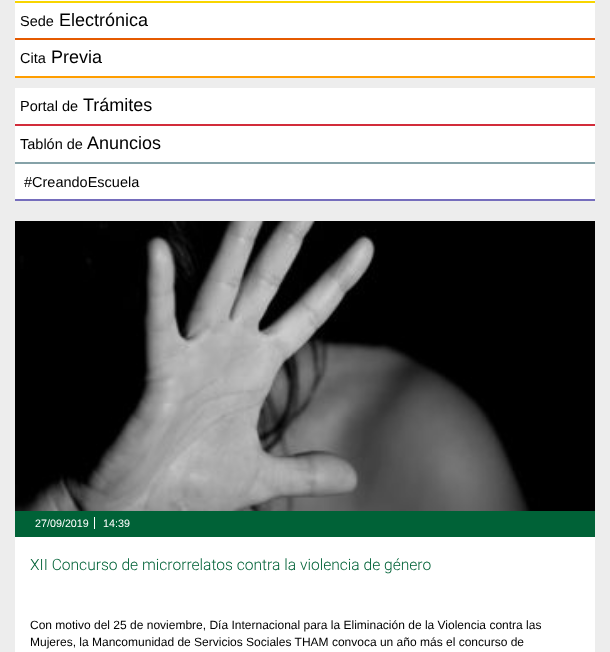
<?xml version="1.0" encoding="UTF-8"?>
<svg xmlns="http://www.w3.org/2000/svg" width="610" height="652">
    <rect width="100%" height="100%" fill="#EDEDED"/>
    <rect x="15" y="0" width="580" height="1" fill="#FFFFFF"/>
    <rect x="15" y="1" width="580" height="2" fill="#F8D500"/>
    <rect x="15" y="3" width="580" height="35" fill="#FFFFFF"/>
    <rect x="15" y="38" width="580" height="2" fill="#E55A00"/>
    <text x="20" y="26" font-family="Liberation Sans" font-size="14.5" fill="#000000">Sede</text>
    <text x="59" y="26" font-family="Liberation Sans" font-size="18" fill="#000000">Electrónica</text>
    <rect x="15" y="40" width="580" height="36" fill="#FFFFFF"/>
    <rect x="15" y="76" width="580" height="2" fill="#FF9E00"/>
    <text x="20" y="63" font-family="Liberation Sans" font-size="14.5" fill="#000000">Cita</text>
    <text x="51" y="63" font-family="Liberation Sans" font-size="18" fill="#000000">Previa</text>
    <rect x="15" y="88" width="580" height="36" fill="#FFFFFF"/>
    <rect x="15" y="124" width="580" height="2" fill="#D22C3A"/>
    <text x="20" y="111" font-family="Liberation Sans" font-size="14.5" fill="#000000">Portal de</text>
    <text x="83" y="111" font-family="Liberation Sans" font-size="18" fill="#000000">Trámites</text>
    <rect x="15" y="126" width="580" height="36" fill="#FFFFFF"/>
    <rect x="15" y="162" width="580" height="2" fill="#85A2A8"/>
    <text x="20" y="149" font-family="Liberation Sans" font-size="14.5" fill="#000000">Tablón de</text>
    <text x="87" y="149" font-family="Liberation Sans" font-size="18" fill="#000000">Anuncios</text>
    <rect x="15" y="164" width="580" height="35" fill="#FFFFFF"/>
    <rect x="15" y="199" width="580" height="2" fill="#756DBC"/>
    <text x="24" y="187" font-family="Liberation Sans" font-size="14.5" fill="#000000">#CreandoEscuela</text>
    <image x="15" y="221" width="580" height="290" href="img_01.png"/>
    <rect x="15" y="511" width="580" height="26" fill="#006237"/>
    <text x="35" y="527" font-family="Liberation Sans" font-size="10.75" fill="#FFFFFF">27/09/2019</text>
    <rect x="94" y="517" width="1" height="12" fill="#FFFFFF"/>
    <text x="103" y="527" font-family="Liberation Sans" font-size="10.75" fill="#FFFFFF">14:39</text>
    <rect x="15" y="537" width="580" height="115" fill="#FFFFFF"/>
    <text x="30" y="570" font-family="Roboto" font-size="15.6" font-weight="300" fill="#006237">XII Concurso de microrrelatos contra la violencia de género</text>
    <text font-family="Liberation Sans" font-size="12" fill="#000000">
        <tspan x="30" y="629">Con motivo del 25 de noviembre, Día Internacional para la Eliminación de la Violencia contra las</tspan>
        <tspan x="30" y="646">Mujeres, la Mancomunidad de Servicios Sociales THAM convoca un año más el concurso de</tspan>
    </text>
</svg>
